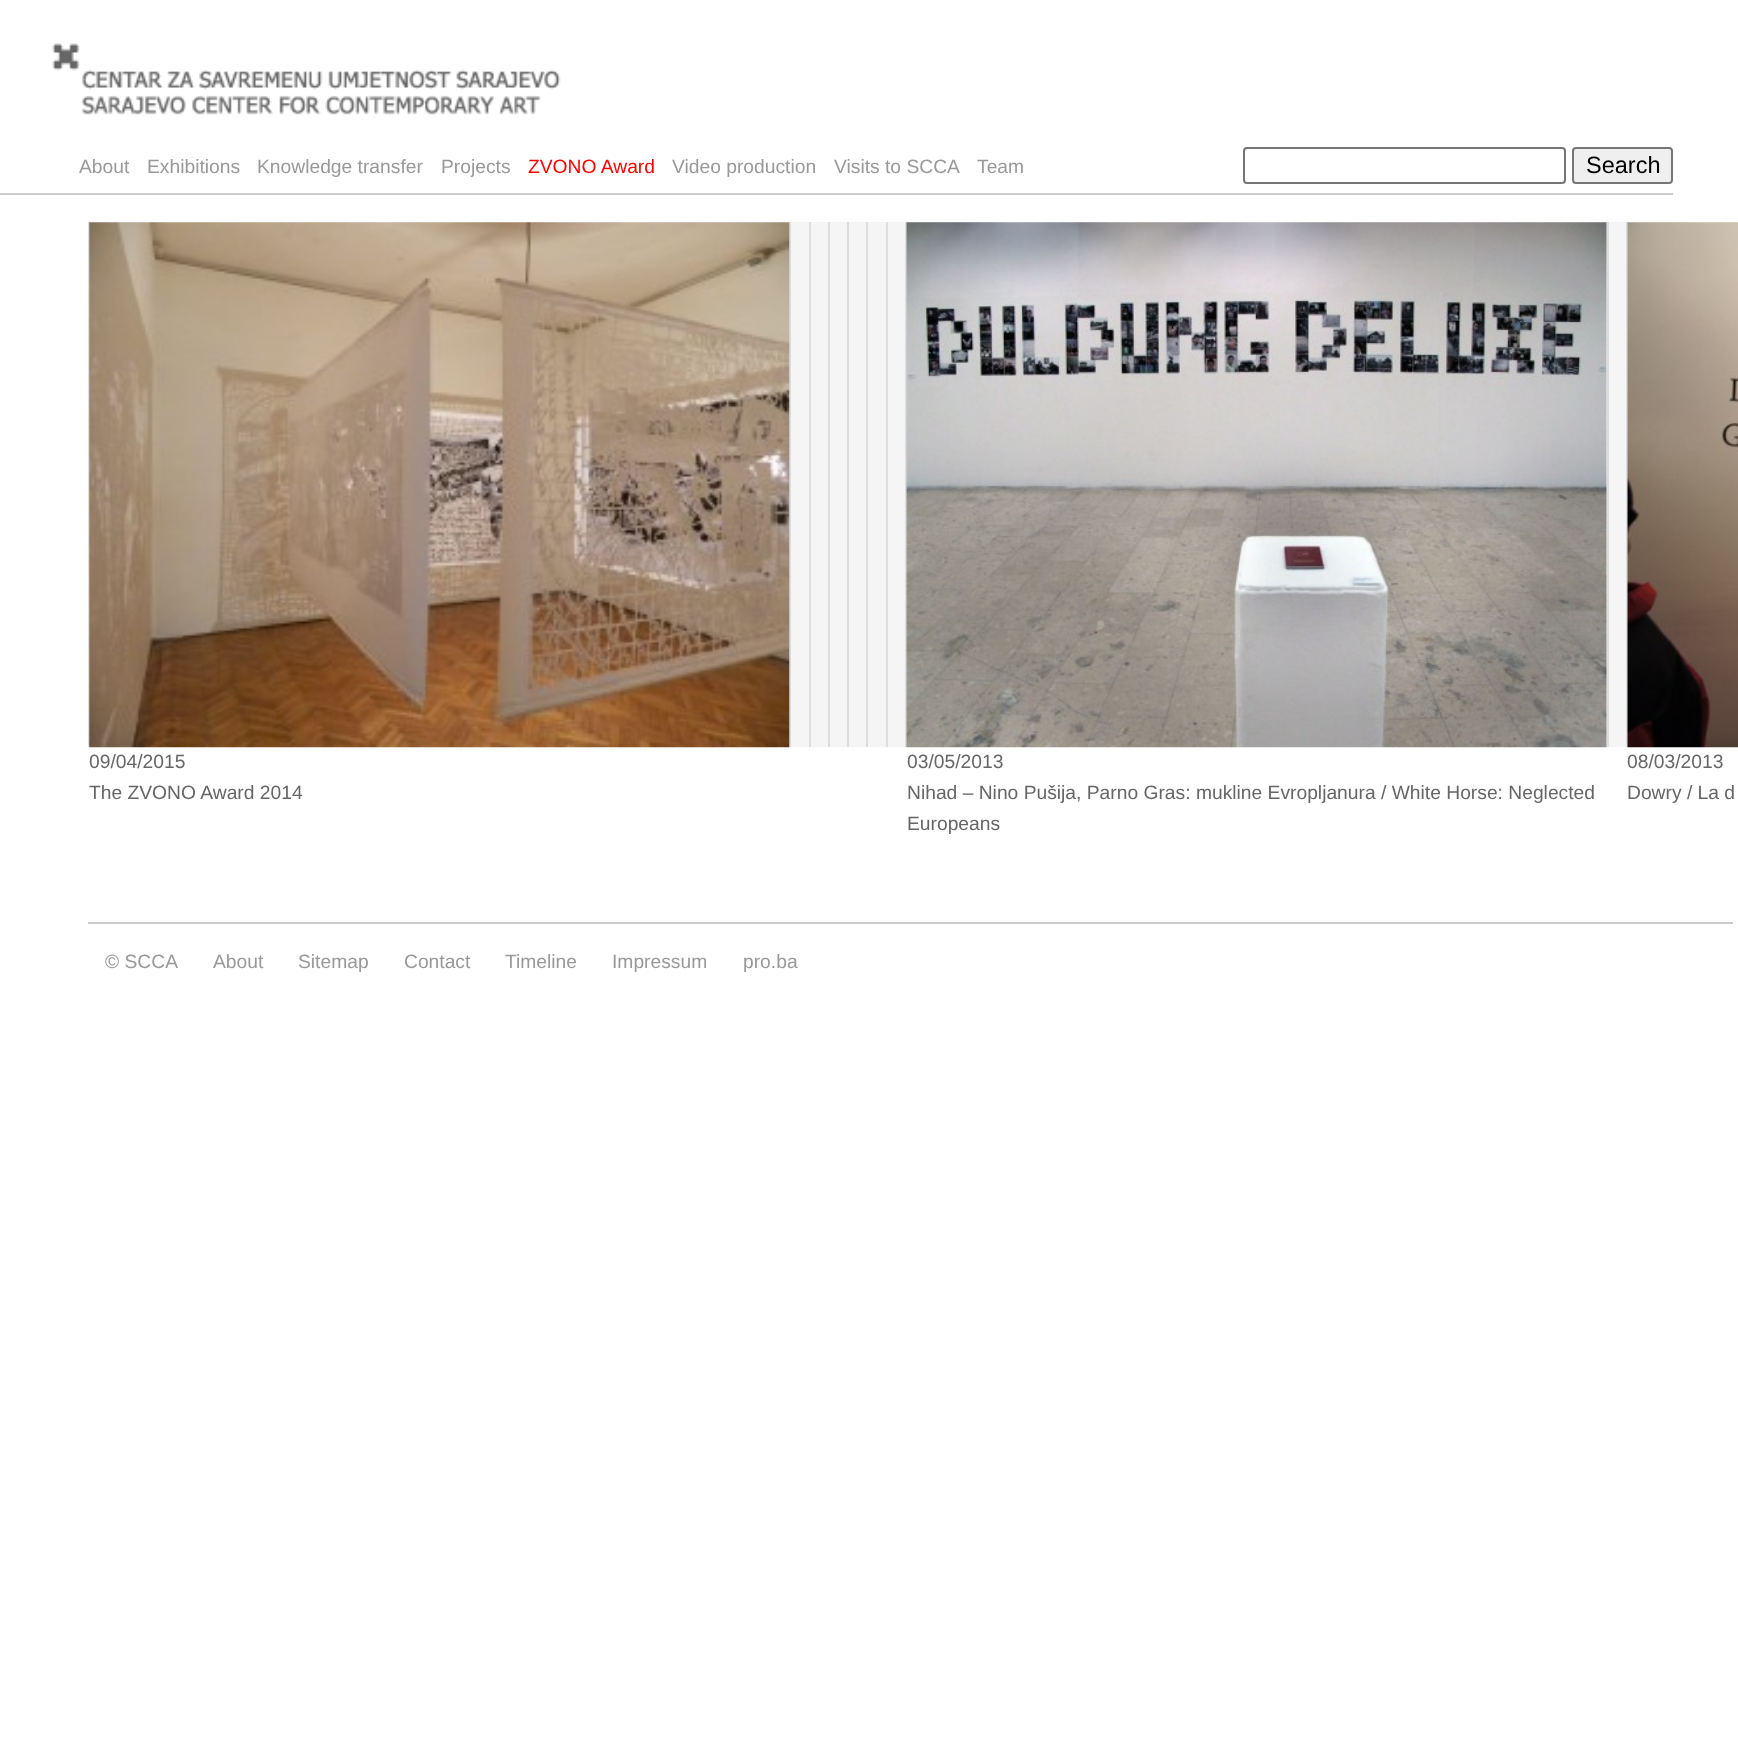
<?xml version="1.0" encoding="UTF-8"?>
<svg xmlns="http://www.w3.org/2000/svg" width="1738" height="1763">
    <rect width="100%" height="100%" fill="#FFFFFF"/>
    <image x="52" y="43" width="509" height="72" href="img_01.png"/>
    <rect x="0" y="193" width="1673" height="2" fill="#CCCCCC"/>
    <text x="79" y="173" font-family="Liberation Sans" font-size="19.25" fill="#999999">About</text>
    <text x="147" y="173" font-family="Liberation Sans" font-size="19.25" fill="#999999">Exhibitions</text>
    <text x="257" y="173" font-family="Liberation Sans" font-size="19.25" fill="#999999">Knowledge transfer</text>
    <text x="441" y="173" font-family="Liberation Sans" font-size="19.25" fill="#999999">Projects</text>
    <text x="528" y="173" font-family="Liberation Sans" font-size="19.25" fill="#FF0000">ZVONO Award</text>
    <text x="672" y="173" font-family="Liberation Sans" font-size="19.25" fill="#999999">Video production</text>
    <text x="834" y="173" font-family="Liberation Sans" font-size="19.25" fill="#999999">Visits to SCCA</text>
    <text x="977" y="173" font-family="Liberation Sans" font-size="19.25" fill="#999999">Team</text>
    <rect x="1244" y="148" width="321" height="35" rx="3" fill="none" stroke="#767676" stroke-width="2"/>
    <rect x="1573" y="148" width="99" height="35" rx="3" fill="#EFEFEF" stroke="#767676" stroke-width="2"/>
    <text x="1586" y="173" font-family="Liberation Sans" font-size="23.5" fill="#000000">Search</text>
    <rect x="791" y="222" width="18" height="525" fill="#F5F5F5"/>
    <rect x="789" y="222" width="2" height="525" fill="#DDDDDD"/>
    <rect x="811" y="222" width="17" height="525" fill="#F5F5F5"/>
    <rect x="809" y="222" width="2" height="525" fill="#DDDDDD"/>
    <rect x="830" y="222" width="17" height="525" fill="#F5F5F5"/>
    <rect x="828" y="222" width="2" height="525" fill="#DDDDDD"/>
    <rect x="849" y="222" width="17" height="525" fill="#F5F5F5"/>
    <rect x="847" y="222" width="2" height="525" fill="#DDDDDD"/>
    <rect x="868" y="222" width="18" height="525" fill="#F5F5F5"/>
    <rect x="866" y="222" width="2" height="525" fill="#DDDDDD"/>
    <rect x="888" y="222" width="17" height="525" fill="#F5F5F5"/>
    <rect x="886" y="222" width="2" height="525" fill="#DDDDDD"/>
    <rect x="1609" y="222" width="17" height="525" fill="#F5F5F5"/>
    <rect x="1607" y="222" width="2" height="525" fill="#DDDDDD"/>
    <rect x="88" y="222" width="2" height="525" fill="#DDDDDD"/>
    <image x="89" y="222" width="701" height="526" href="img_02.png"/>
    <text font-family="Liberation Sans" font-size="19.25" fill="#666666">
        <tspan x="89" y="768">09/04/2015</tspan>
        <tspan x="89" y="799">The ZVONO Award 2014</tspan>
    </text>
    <rect x="907" y="222" width="700" height="525" fill="#F5F5F5"/>
    <rect x="905" y="222" width="2" height="525" fill="#DDDDDD"/>
    <image x="906" y="222" width="701" height="526" href="img_03.png"/>
    <text font-family="Liberation Sans" font-size="19.25" fill="#666666">
        <tspan x="907" y="768">03/05/2013</tspan>
        <tspan x="907" y="799">Nihad – Nino Pušija, Parno Gras: mukline Evropljanura / White Horse: Neglected</tspan>
        <tspan x="907" y="830">Europeans</tspan>
    </text>
    <rect x="1626" y="222" width="2" height="525" fill="#DDDDDD"/>
    <image x="1627" y="222" width="111" height="526" href="img_04.png"/>
    <text font-family="Liberation Sans" font-size="19.25" fill="#666666">
        <tspan x="1627" y="768">08/03/2013</tspan>
        <tspan x="1627" y="799">Dowry / La d</tspan>
    </text>
    <rect x="88" y="922" width="1645" height="2" fill="#CCCCCC"/>
    <text x="105" y="968" font-family="Liberation Sans" font-size="19.25" fill="#999999">© SCCA</text>
    <text x="213" y="968" font-family="Liberation Sans" font-size="19.25" fill="#999999">About</text>
    <text x="298" y="968" font-family="Liberation Sans" font-size="19.25" fill="#999999">Sitemap</text>
    <text x="404" y="968" font-family="Liberation Sans" font-size="19.25" fill="#999999">Contact</text>
    <text x="505" y="968" font-family="Liberation Sans" font-size="19.25" fill="#999999">Timeline</text>
    <text x="612" y="968" font-family="Liberation Sans" font-size="19.25" fill="#999999">Impressum</text>
    <text x="743" y="968" font-family="Liberation Sans" font-size="19.25" fill="#999999">pro.ba</text>
</svg>
